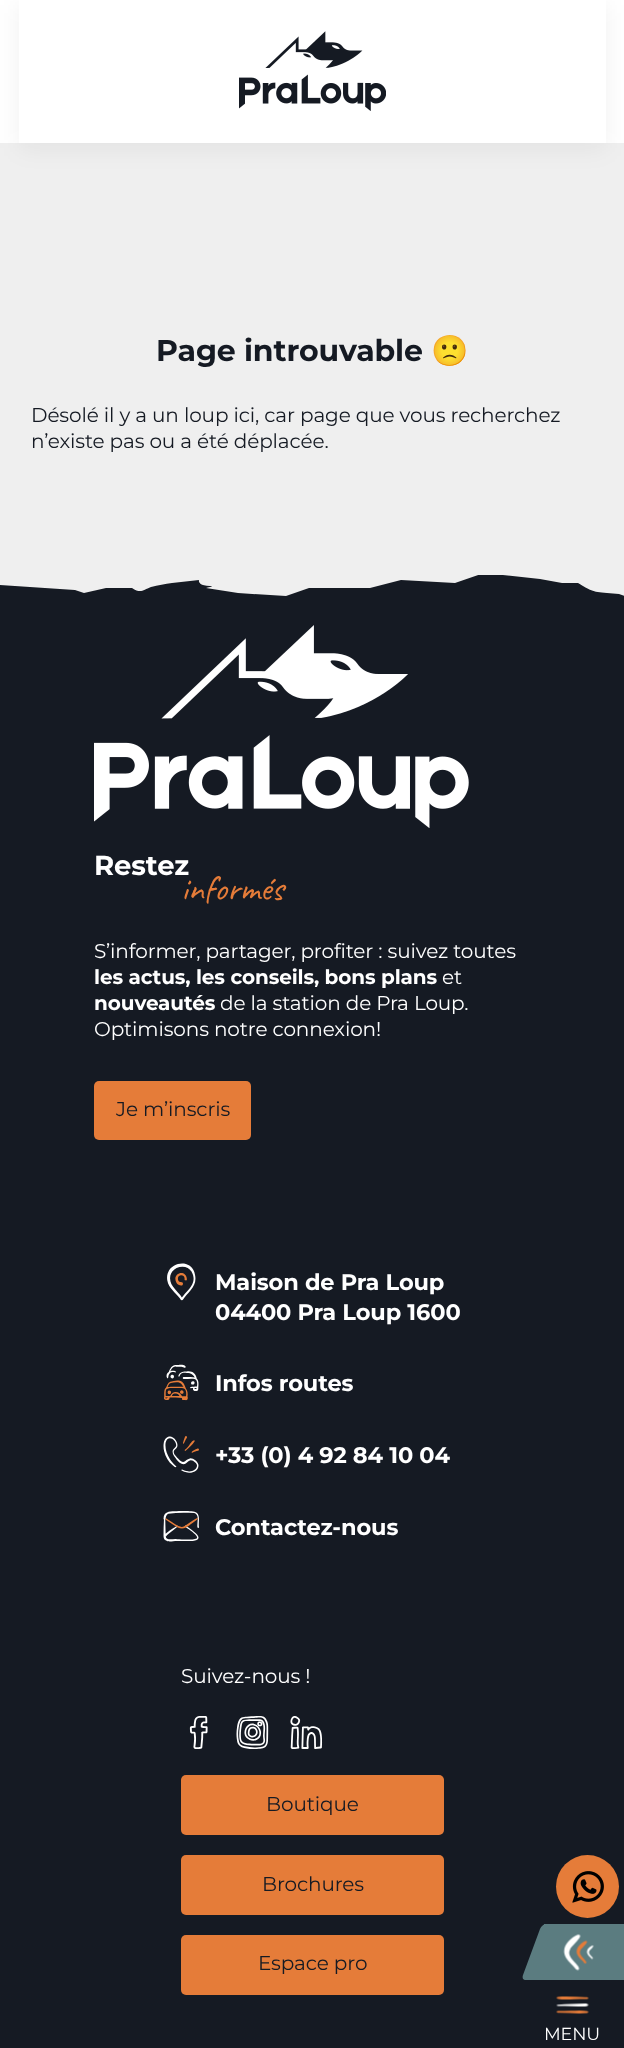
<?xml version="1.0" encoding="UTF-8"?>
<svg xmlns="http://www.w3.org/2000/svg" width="624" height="2048">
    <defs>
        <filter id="blur1" x="-50%" y="-200%" width="200%" height="500%"><feGaussianBlur stdDeviation="12.5"/></filter>
    </defs>
    <rect width="100%" height="100%" fill="#EFEFEF"/>
    <text x="156" y="361" font-family="Montserrat" font-size="30" font-weight="700" letter-spacing="-0.12" fill="#151A23">Page introuvable</text>
    <text x="431" y="361" font-family="Noto Color Emoji" font-size="30" font-weight="700" letter-spacing="-0.12" fill="#151A23">🙁</text>
    <text font-family="Montserrat" font-size="20" letter-spacing="-0.12" fill="#151A23">
        <tspan x="31" y="422">Désolé il y a un loup ici, car page que vous recherchez</tspan>
        <tspan x="31" y="448">n’existe pas ou a été déplacée.</tspan>
    </text>
    <rect x="0" y="575" width="624" height="1473" fill="#151A23"/>
    <path d="M 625 573 V 596 L 619 594 L 607 593 C 592 592 590 590 578 583 H 562 L 540 579 L 484 573 L 455 583 L 401 580 L 370 588 H 309 L 286 596 L 238 593 L 206 588 C 206 588 216 586 210 586 C 197 586 199 580 199 580 L 172 583 C 165 584 158 585 151 587 C 143 590 141 594 132 588 H 106 L 84 593 L 75 590 L 0 585 V 573 Z" fill="#EFEFEF"/>
    <image x="94" y="625" width="375" height="203" href="img_01.png"/>
    <text x="94" y="875" font-family="Montserrat" font-size="27.5" font-weight="700" letter-spacing="-0.12" fill="#FFFFFF">Restez</text>
    <text x="181" y="900" font-family="Caveat" font-size="36" letter-spacing="-0.12" fill="#E57C39">informés</text>
    <text x="94" y="958" font-family="Montserrat" font-size="20" letter-spacing="-0.12" fill="#FFFFFF">S’informer, partager, profiter : suivez toutes</text>
    <text x="94" y="984" font-family="Montserrat" font-size="20" font-weight="700" letter-spacing="-0.12" fill="#FFFFFF">les actus, les conseils, bons plans</text>
    <text x="442" y="984" font-family="Montserrat" font-size="20" letter-spacing="-0.12" fill="#FFFFFF">et</text>
    <text x="94" y="1010" font-family="Montserrat" font-size="20" font-weight="700" letter-spacing="-0.12" fill="#FFFFFF">nouveautés</text>
    <text x="220" y="1010" font-family="Montserrat" font-size="20" letter-spacing="-0.12" fill="#FFFFFF">de la station de Pra Loup.</text>
    <text x="94" y="1036" font-family="Montserrat" font-size="20" letter-spacing="-0.12" fill="#FFFFFF">Optimisons notre connexion!</text>
    <rect x="94" y="1081" width="157" height="59" rx="5" fill="#E57C39"/>
    <text x="116" y="1116" font-family="Montserrat" font-size="20" letter-spacing="-0.12" fill="#151A23">Je m’inscris</text>
    <image x="167" y="1263" width="29" height="38" href="img_02.png"/>
    <text font-family="Montserrat" font-size="22.5" font-weight="700" letter-spacing="-0.12" fill="#FFFFFF">
        <tspan x="215" y="1290">Maison de Pra Loup</tspan>
        <tspan x="215" y="1320">04400 Pra Loup 1600</tspan>
    </text>
    <image x="164" y="1364" width="35" height="37" href="img_03.png"/>
    <text x="215" y="1391" font-family="Montserrat" font-size="22.5" font-weight="700" letter-spacing="-0.12" fill="#FFFFFF">Infos routes</text>
    <image x="163" y="1436" width="36" height="37" href="img_04.png"/>
    <text x="215" y="1463" font-family="Montserrat" font-size="22.5" font-weight="700" letter-spacing="-0.12" fill="#FFFFFF">+33 (0) 4 92 84 10 04</text>
    <image x="163" y="1511" width="36" height="31" href="img_05.png"/>
    <text x="215" y="1535" font-family="Montserrat" font-size="22.5" font-weight="700" letter-spacing="-0.12" fill="#FFFFFF">Contactez-nous</text>
    <text x="181" y="1683" font-family="Montserrat" font-size="20" letter-spacing="-0.12" fill="#FFFFFF">Suivez-nous !</text>
    <image x="189" y="1716" width="19" height="33" href="img_06.png"/>
    <image x="236" y="1716" width="33" height="33" href="img_07.png"/>
    <image x="290" y="1716" width="33" height="33" href="img_08.png"/>
    <rect x="181" y="1775" width="263" height="60" rx="5" fill="#E57C39"/>
    <text x="266" y="1811" font-family="Montserrat" font-size="20" letter-spacing="-0.12" fill="#151A23">Boutique</text>
    <rect x="181" y="1855" width="263" height="60" rx="5" fill="#E57C39"/>
    <text x="262" y="1891" font-family="Montserrat" font-size="20" letter-spacing="-0.12" fill="#151A23">Brochures</text>
    <rect x="181" y="1935" width="263" height="60" rx="5" fill="#E57C39"/>
    <text x="258" y="1970" font-family="Montserrat" font-size="20" letter-spacing="-0.12" fill="#151A23">Espace pro</text>
    <rect x="0" y="0" width="624" height="143" fill="#FFFFFF"/>
    <rect x="19" y="5" width="587" height="143" fill="#000000" fill-opacity="0.06" filter="url(#blur1)"/>
    <rect x="19" y="0" width="587" height="143" fill="#FFFFFF"/>
    <image x="239" y="31" width="147" height="80" href="img_09.png"/>
    <path d="M 546 1924 H 591 L 571 1980 H 526 C 523 1980 522 1978 523 1975 L 540 1929 C 541 1926 544 1924 546 1924 Z" fill="#5B7C80"/>
    <rect x="544" y="1924" width="80" height="56" fill="#5B7C80"/>
    <image x="563" y="1934" width="31" height="37" href="img_10.png"/>
    <image x="556" y="1996" width="33" height="18" href="img_11.png"/>
    <text x="544" y="2040" font-family="Montserrat" font-size="17.5" letter-spacing="-0.12" fill="#FFFFFF">MENU</text>
    <circle cx="587.5" cy="1886.5" r="31.5" fill="#E57C39"/>
    <image x="572" y="1871" width="32" height="32" href="img_12.png"/>
</svg>
